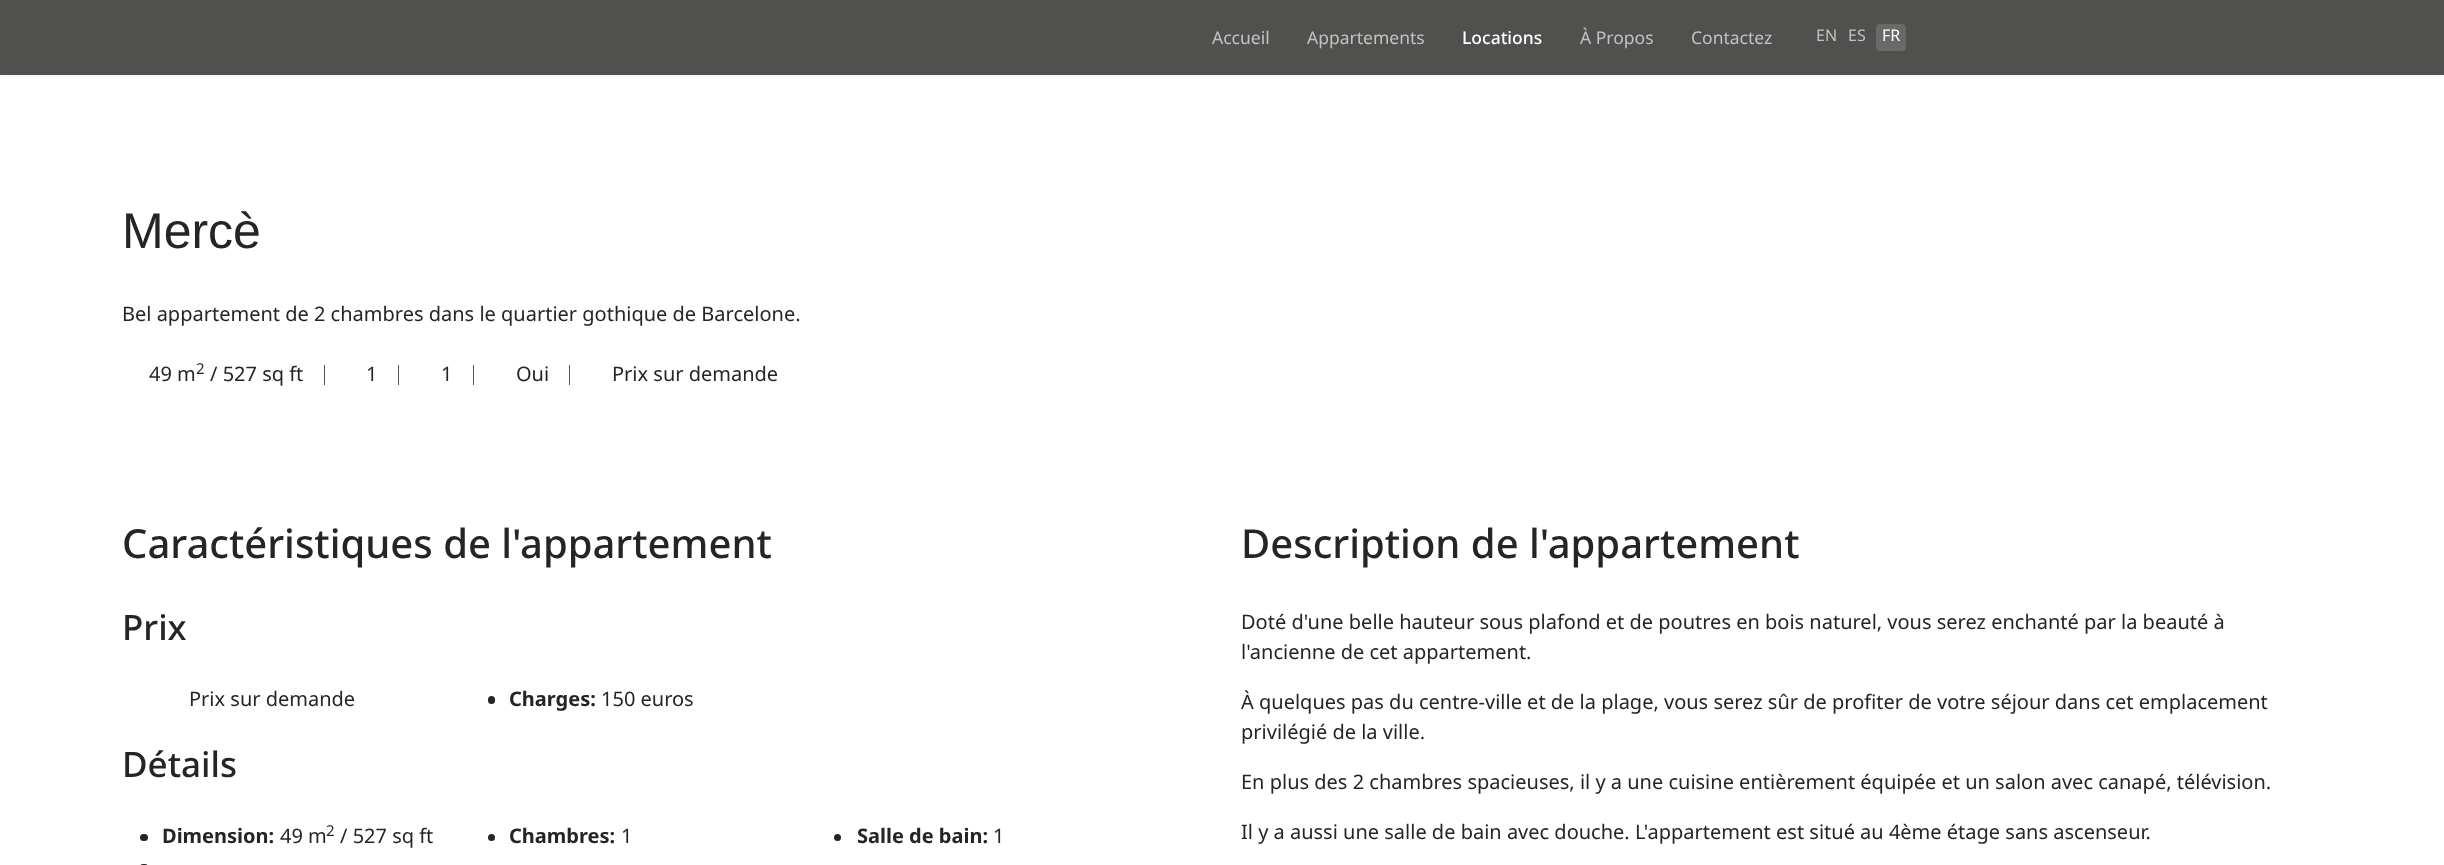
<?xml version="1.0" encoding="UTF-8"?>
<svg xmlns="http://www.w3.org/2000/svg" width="2444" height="865">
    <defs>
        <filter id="blur1" x="-50%" y="-200%" width="200%" height="500%"><feGaussianBlur stdDeviation="2.5"/></filter>
    </defs>
    <rect width="100%" height="100%" fill="#FFFFFF"/>
    <rect x="0" y="0" width="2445" height="75" fill="#000000" fill-opacity="0.1" filter="url(#blur1)"/>
    <rect x="0" y="0" width="2444" height="75" fill="#50504E"/>
    <text x="1212" y="44" font-family="Noto Sans" font-size="17.5" fill="#C2C2C2">Accueil</text>
    <text x="1307" y="44" font-family="Noto Sans" font-size="17.5" fill="#C2C2C2">Appartements</text>
    <text x="1462" y="44" font-family="Noto Sans" font-size="17.5" font-weight="500" fill="#FFFFFF">Locations</text>
    <text x="1580" y="44" font-family="Noto Sans" font-size="17.5" fill="#C2C2C2">À Propos</text>
    <text x="1691" y="44" font-family="Noto Sans" font-size="17.5" fill="#C2C2C2">Contactez</text>
    <text x="1816" y="41" font-family="Noto Sans" font-size="16" fill="#C2C2C2">EN</text>
    <text x="1848" y="41" font-family="Noto Sans" font-size="16" fill="#C2C2C2">ES</text>
    <rect x="1876" y="24" width="30" height="27" rx="4" fill="#696968"/>
    <text x="1882" y="41" font-family="Noto Sans" font-size="16" fill="#FFFFFF">FR</text>
    <text x="122" y="248" font-family="Liberation Sans" font-size="50" fill="#252525">Mercè</text>
    <text x="122" y="321" font-family="Noto Sans" font-size="20" fill="#252525">Bel appartement de 2 chambres dans le quartier gothique de Barcelone.</text>
    <text x="149" y="381" font-family="Noto Sans" font-size="20" fill="#252525">49 m</text>
    <text x="196" y="374" font-family="Noto Sans" font-size="15" fill="#252525">2</text>
    <text x="210" y="381" font-family="Noto Sans" font-size="20" fill="#252525">/ 527 sq ft</text>
    <text x="366" y="381" font-family="Noto Sans" font-size="20" fill="#252525">1</text>
    <rect x="324" y="365" width="1" height="20" fill="#555555"/>
    <text x="441" y="381" font-family="Noto Sans" font-size="20" fill="#252525">1</text>
    <rect x="398" y="365" width="1" height="20" fill="#555555"/>
    <text x="516" y="381" font-family="Noto Sans" font-size="20" fill="#252525">Oui</text>
    <rect x="473" y="365" width="1" height="20" fill="#555555"/>
    <text x="612" y="381" font-family="Noto Sans" font-size="20" fill="#252525">Prix sur demande</text>
    <rect x="569" y="365" width="1" height="20" fill="#555555"/>
    <text x="122" y="558" font-family="Noto Sans" font-size="40" font-weight="500" fill="#252525">Caractéristiques de l'appartement</text>
    <text x="122" y="640" font-family="Noto Sans" font-size="35" font-weight="500" fill="#252525">Prix</text>
    <text x="189" y="706" font-family="Noto Sans" font-size="20" fill="#252525">Prix sur demande</text>
    <rect x="488" y="696" width="7" height="8" rx="3.5" fill="#252525"/>
    <text x="509" y="706" font-family="Noto Sans" font-size="20" font-weight="700" fill="#252525">Charges:</text>
    <text x="601" y="706" font-family="Noto Sans" font-size="20" fill="#252525">150 euros</text>
    <text x="122" y="777" font-family="Noto Sans" font-size="35" font-weight="500" fill="#252525">Détails</text>
    <rect x="140" y="834" width="8" height="7" rx="3.5" fill="#252525"/>
    <text x="162" y="843" font-family="Noto Sans" font-size="20" font-weight="700" fill="#252525">Dimension:</text>
    <text x="280" y="843" font-family="Noto Sans" font-size="20" fill="#252525">49 m</text>
    <text x="326" y="836" font-family="Noto Sans" font-size="15" fill="#252525">2</text>
    <text x="340" y="843" font-family="Noto Sans" font-size="20" fill="#252525">/ 527 sq ft</text>
    <circle cx="491.5" cy="837.5" r="3.5" fill="#252525"/>
    <text x="509" y="843" font-family="Noto Sans" font-size="20" font-weight="700" fill="#252525">Chambres:</text>
    <text x="621" y="843" font-family="Noto Sans" font-size="20" fill="#252525">1</text>
    <circle cx="837.5" cy="837.5" r="3.5" fill="#252525"/>
    <text x="857" y="843" font-family="Noto Sans" font-size="20" font-weight="700" fill="#252525">Salle de bain:</text>
    <text x="993" y="843" font-family="Noto Sans" font-size="20" fill="#252525">1</text>
    <rect x="140" y="864" width="8" height="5" rx="3.5" fill="#252525"/>
    <text x="1241" y="558" font-family="Noto Sans" font-size="40" font-weight="500" fill="#252525">Description de l'appartement</text>
    <text font-family="Noto Sans" font-size="20" fill="#252525">
        <tspan x="1241" y="629">Doté d'une belle hauteur sous plafond et de poutres en bois naturel, vous serez enchanté par la beauté à</tspan>
        <tspan x="1241" y="659">l'ancienne de cet appartement.</tspan>
    </text>
    <text font-family="Noto Sans" font-size="20" fill="#252525">
        <tspan x="1241" y="709">À quelques pas du centre-ville et de la plage, vous serez sûr de profiter de votre séjour dans cet emplacement</tspan>
        <tspan x="1241" y="739">privilégié de la ville.</tspan>
    </text>
    <text x="1241" y="789" font-family="Noto Sans" font-size="20" fill="#252525">En plus des 2 chambres spacieuses, il y a une cuisine entièrement équipée et un salon avec canapé, télévision.</text>
    <text x="1241" y="839" font-family="Noto Sans" font-size="20" fill="#252525">Il y a aussi une salle de bain avec douche. L'appartement est situé au 4ème étage sans ascenseur.</text>
</svg>
